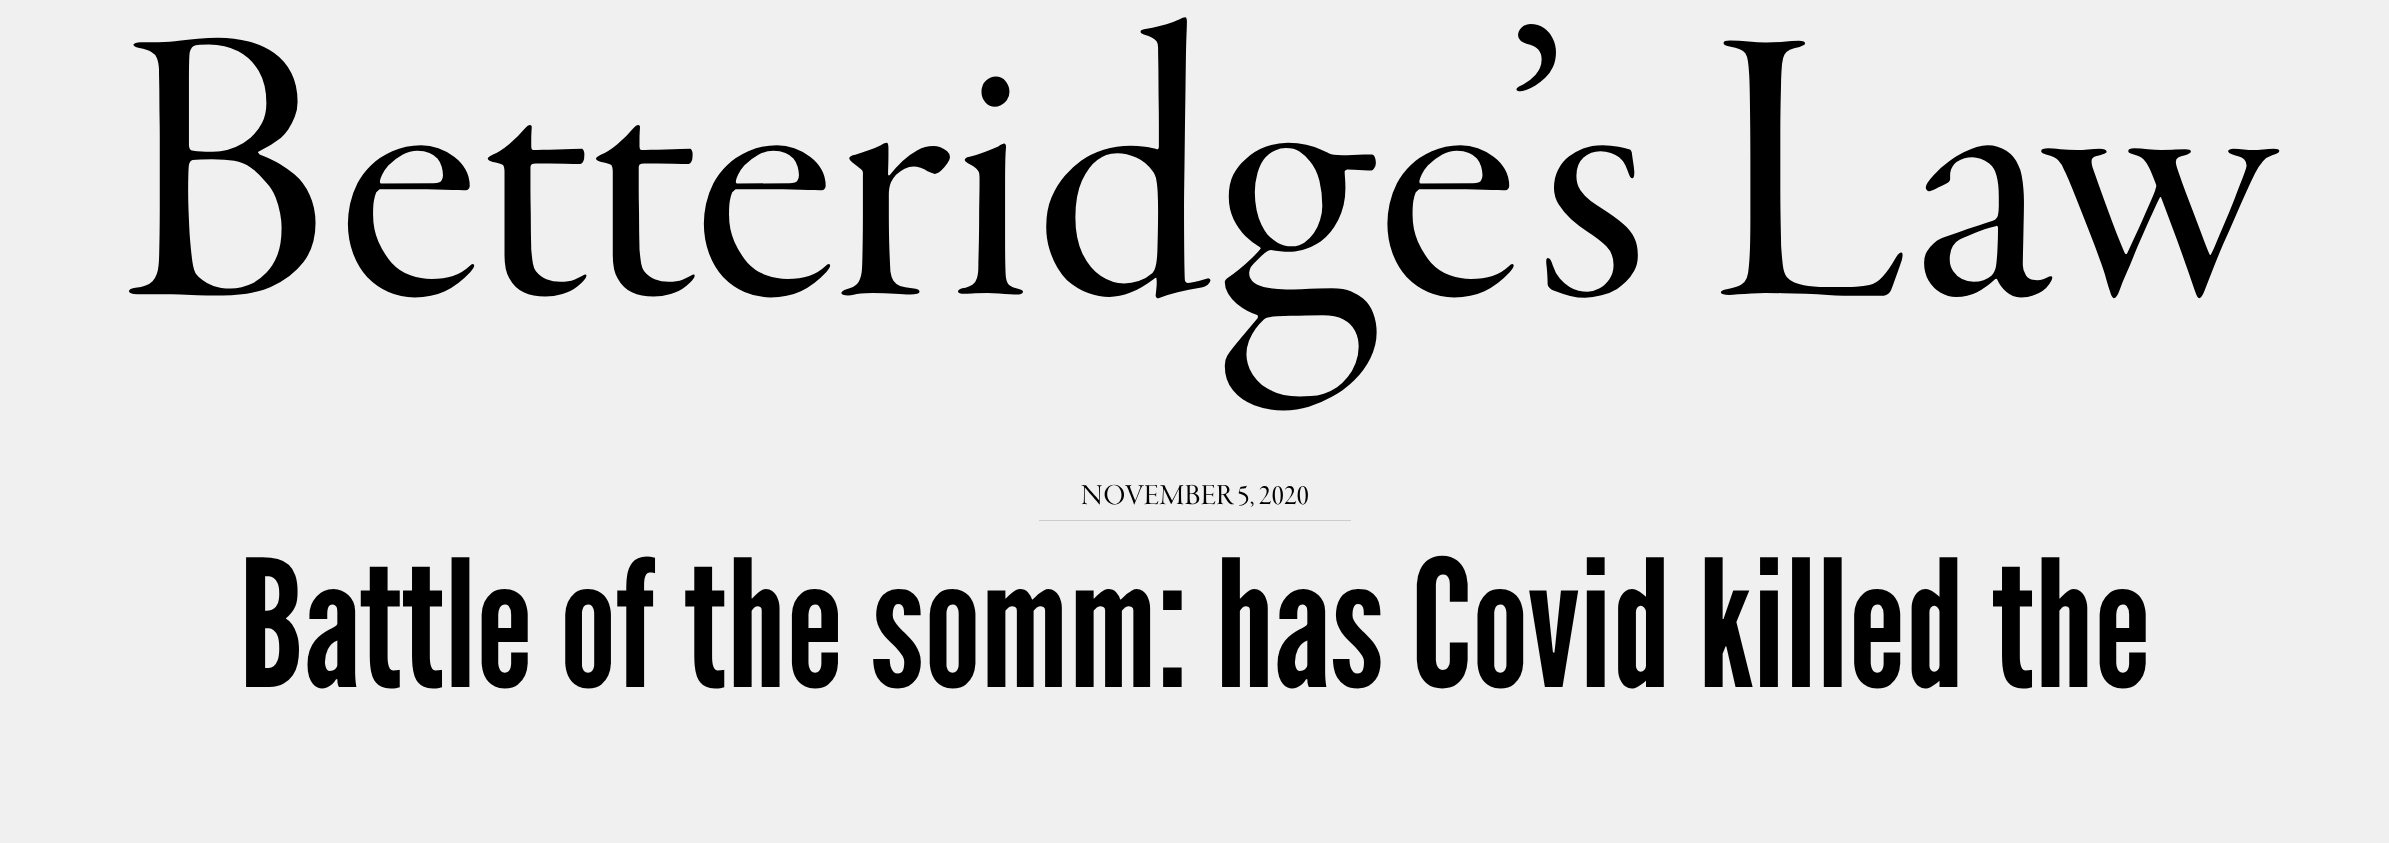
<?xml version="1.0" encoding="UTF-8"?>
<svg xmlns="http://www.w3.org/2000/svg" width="2389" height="843">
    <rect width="100%" height="100%" fill="#F0F0F0"/>
    <text x="119" y="293" word-spacing="1" font-family="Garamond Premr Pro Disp" font-size="399.5" fill="#000000">Betteridge’s Law</text>
    <rect x="1039" y="520" width="312" height="1" fill="#CCCCCC"/>
    <text x="1081" y="504" font-family="Garamond Premr Pro Disp" font-size="30" fill="#000000">NOVEMBER 5, 2020</text>
    <text x="239" y="687" word-spacing="-0.25" font-family="League Gothic" font-size="176.5" fill="#000000">Battle of the somm: has Covid killed the</text>
</svg>
